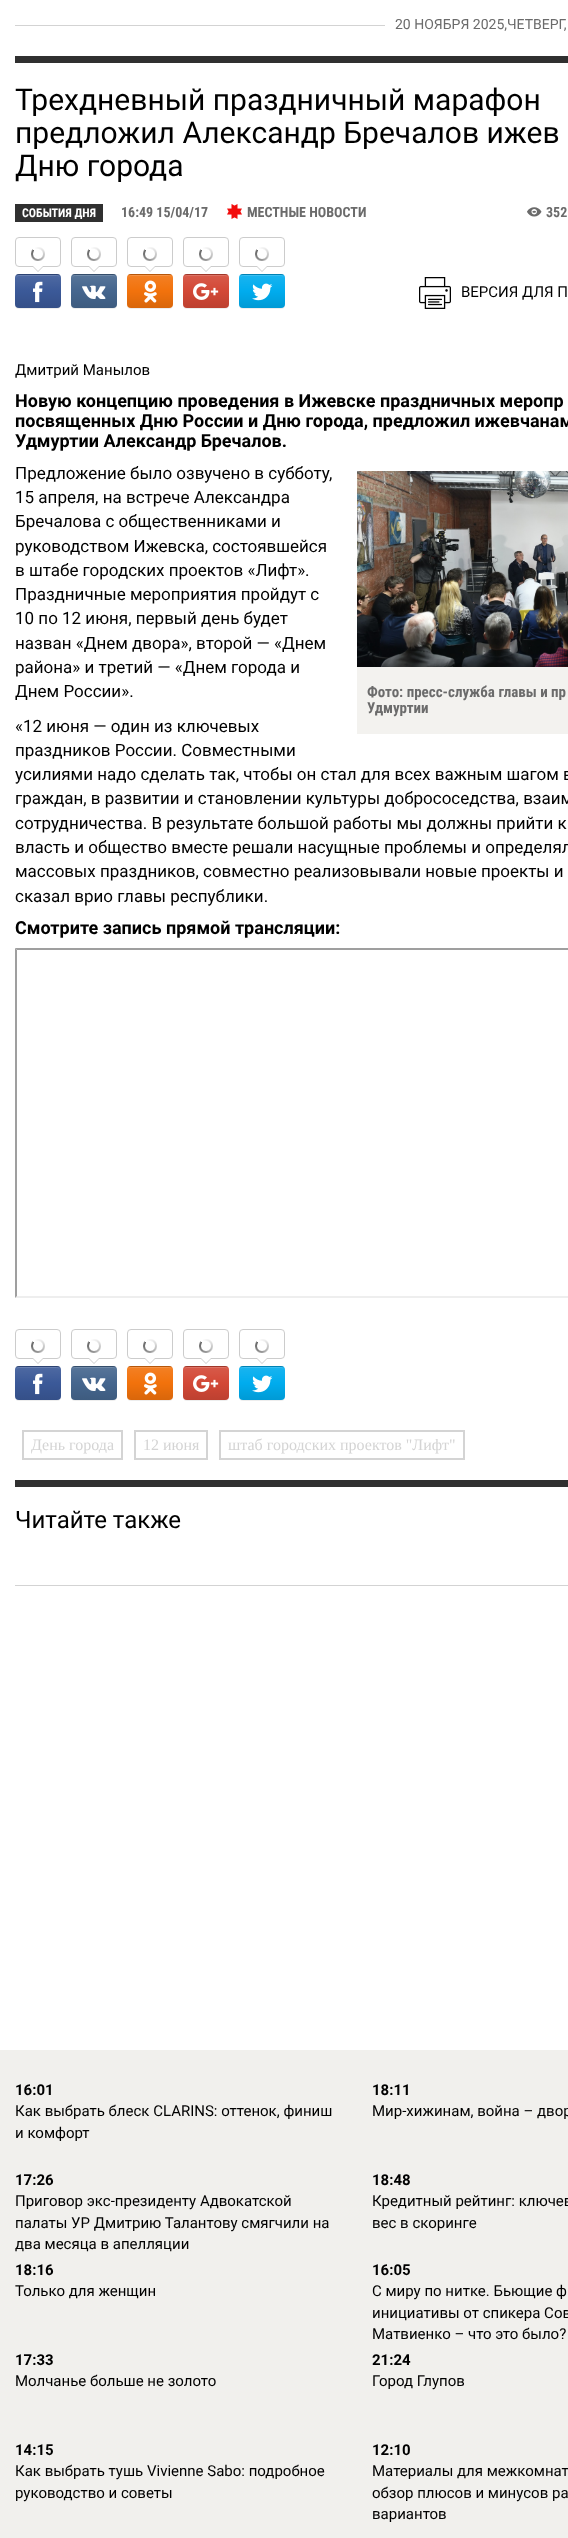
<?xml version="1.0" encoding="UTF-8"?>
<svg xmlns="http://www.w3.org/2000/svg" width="568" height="2538">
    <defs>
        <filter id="blur1" x="-50%" y="-200%" width="200%" height="500%"><feGaussianBlur stdDeviation="0.5"/></filter>
        <clipPath id="clip1"><rect x="15" y="274" width="46" height="34" rx="4"/></clipPath>
        <linearGradient id="g1" gradientUnits="userSpaceOnUse" x1="38" y1="275" x2="38" y2="211"><stop offset="0" stop-color="#000000" stop-opacity="0.25"/><stop offset="0.5" stop-color="#000000" stop-opacity="0.1"/><stop offset="0.75" stop-color="#000000" stop-opacity="0"/><stop offset="0.75" stop-color="#FFFFFF" stop-opacity="0"/><stop offset="1" stop-color="#FFFFFF" stop-opacity="0.1"/></linearGradient>
        <linearGradient id="g2" gradientUnits="userSpaceOnUse" x1="38" y1="339" x2="38" y2="275"><stop offset="0" stop-color="#000000" stop-opacity="0.25"/><stop offset="0.5" stop-color="#000000" stop-opacity="0.1"/><stop offset="0.75" stop-color="#000000" stop-opacity="0"/><stop offset="0.75" stop-color="#FFFFFF" stop-opacity="0"/><stop offset="1" stop-color="#FFFFFF" stop-opacity="0.1"/></linearGradient>
        <clipPath id="clip2"><rect x="71" y="274" width="46" height="34" rx="4"/></clipPath>
        <linearGradient id="g3" gradientUnits="userSpaceOnUse" x1="94" y1="275" x2="94" y2="211"><stop offset="0" stop-color="#000000" stop-opacity="0.25"/><stop offset="0.5" stop-color="#000000" stop-opacity="0.1"/><stop offset="0.75" stop-color="#000000" stop-opacity="0"/><stop offset="0.75" stop-color="#FFFFFF" stop-opacity="0"/><stop offset="1" stop-color="#FFFFFF" stop-opacity="0.1"/></linearGradient>
        <linearGradient id="g4" gradientUnits="userSpaceOnUse" x1="94" y1="339" x2="94" y2="275"><stop offset="0" stop-color="#000000" stop-opacity="0.25"/><stop offset="0.5" stop-color="#000000" stop-opacity="0.1"/><stop offset="0.75" stop-color="#000000" stop-opacity="0"/><stop offset="0.75" stop-color="#FFFFFF" stop-opacity="0"/><stop offset="1" stop-color="#FFFFFF" stop-opacity="0.1"/></linearGradient>
        <clipPath id="clip3"><rect x="127" y="274" width="46" height="34" rx="4"/></clipPath>
        <linearGradient id="g5" gradientUnits="userSpaceOnUse" x1="150" y1="275" x2="150" y2="211"><stop offset="0" stop-color="#000000" stop-opacity="0.25"/><stop offset="0.5" stop-color="#000000" stop-opacity="0.1"/><stop offset="0.75" stop-color="#000000" stop-opacity="0"/><stop offset="0.75" stop-color="#FFFFFF" stop-opacity="0"/><stop offset="1" stop-color="#FFFFFF" stop-opacity="0.1"/></linearGradient>
        <linearGradient id="g6" gradientUnits="userSpaceOnUse" x1="150" y1="339" x2="150" y2="275"><stop offset="0" stop-color="#000000" stop-opacity="0.25"/><stop offset="0.5" stop-color="#000000" stop-opacity="0.1"/><stop offset="0.75" stop-color="#000000" stop-opacity="0"/><stop offset="0.75" stop-color="#FFFFFF" stop-opacity="0"/><stop offset="1" stop-color="#FFFFFF" stop-opacity="0.1"/></linearGradient>
        <clipPath id="clip4"><rect x="183" y="274" width="46" height="34" rx="4"/></clipPath>
        <linearGradient id="g7" gradientUnits="userSpaceOnUse" x1="206" y1="275" x2="206" y2="211"><stop offset="0" stop-color="#000000" stop-opacity="0.25"/><stop offset="0.5" stop-color="#000000" stop-opacity="0.1"/><stop offset="0.75" stop-color="#000000" stop-opacity="0"/><stop offset="0.75" stop-color="#FFFFFF" stop-opacity="0"/><stop offset="1" stop-color="#FFFFFF" stop-opacity="0.1"/></linearGradient>
        <linearGradient id="g8" gradientUnits="userSpaceOnUse" x1="206" y1="339" x2="206" y2="275"><stop offset="0" stop-color="#000000" stop-opacity="0.25"/><stop offset="0.5" stop-color="#000000" stop-opacity="0.1"/><stop offset="0.75" stop-color="#000000" stop-opacity="0"/><stop offset="0.75" stop-color="#FFFFFF" stop-opacity="0"/><stop offset="1" stop-color="#FFFFFF" stop-opacity="0.1"/></linearGradient>
        <clipPath id="clip5"><rect x="239" y="274" width="46" height="34" rx="4"/></clipPath>
        <linearGradient id="g9" gradientUnits="userSpaceOnUse" x1="262" y1="275" x2="262" y2="211"><stop offset="0" stop-color="#000000" stop-opacity="0.25"/><stop offset="0.5" stop-color="#000000" stop-opacity="0.1"/><stop offset="0.75" stop-color="#000000" stop-opacity="0"/><stop offset="0.75" stop-color="#FFFFFF" stop-opacity="0"/><stop offset="1" stop-color="#FFFFFF" stop-opacity="0.1"/></linearGradient>
        <linearGradient id="g10" gradientUnits="userSpaceOnUse" x1="262" y1="339" x2="262" y2="275"><stop offset="0" stop-color="#000000" stop-opacity="0.25"/><stop offset="0.5" stop-color="#000000" stop-opacity="0.1"/><stop offset="0.75" stop-color="#000000" stop-opacity="0"/><stop offset="0.75" stop-color="#FFFFFF" stop-opacity="0"/><stop offset="1" stop-color="#FFFFFF" stop-opacity="0.1"/></linearGradient>
        <clipPath id="clip6"><rect x="15" y="1366" width="46" height="34" rx="4"/></clipPath>
        <linearGradient id="g11" gradientUnits="userSpaceOnUse" x1="38" y1="1367" x2="38" y2="1303"><stop offset="0" stop-color="#000000" stop-opacity="0.25"/><stop offset="0.5" stop-color="#000000" stop-opacity="0.1"/><stop offset="0.75" stop-color="#000000" stop-opacity="0"/><stop offset="0.75" stop-color="#FFFFFF" stop-opacity="0"/><stop offset="1" stop-color="#FFFFFF" stop-opacity="0.1"/></linearGradient>
        <linearGradient id="g12" gradientUnits="userSpaceOnUse" x1="38" y1="1431" x2="38" y2="1367"><stop offset="0" stop-color="#000000" stop-opacity="0.25"/><stop offset="0.5" stop-color="#000000" stop-opacity="0.1"/><stop offset="0.75" stop-color="#000000" stop-opacity="0"/><stop offset="0.75" stop-color="#FFFFFF" stop-opacity="0"/><stop offset="1" stop-color="#FFFFFF" stop-opacity="0.1"/></linearGradient>
        <clipPath id="clip7"><rect x="71" y="1366" width="46" height="34" rx="4"/></clipPath>
        <linearGradient id="g13" gradientUnits="userSpaceOnUse" x1="94" y1="1367" x2="94" y2="1303"><stop offset="0" stop-color="#000000" stop-opacity="0.25"/><stop offset="0.5" stop-color="#000000" stop-opacity="0.1"/><stop offset="0.75" stop-color="#000000" stop-opacity="0"/><stop offset="0.75" stop-color="#FFFFFF" stop-opacity="0"/><stop offset="1" stop-color="#FFFFFF" stop-opacity="0.1"/></linearGradient>
        <linearGradient id="g14" gradientUnits="userSpaceOnUse" x1="94" y1="1431" x2="94" y2="1367"><stop offset="0" stop-color="#000000" stop-opacity="0.25"/><stop offset="0.5" stop-color="#000000" stop-opacity="0.1"/><stop offset="0.75" stop-color="#000000" stop-opacity="0"/><stop offset="0.75" stop-color="#FFFFFF" stop-opacity="0"/><stop offset="1" stop-color="#FFFFFF" stop-opacity="0.1"/></linearGradient>
        <clipPath id="clip8"><rect x="127" y="1366" width="46" height="34" rx="4"/></clipPath>
        <linearGradient id="g15" gradientUnits="userSpaceOnUse" x1="150" y1="1367" x2="150" y2="1303"><stop offset="0" stop-color="#000000" stop-opacity="0.25"/><stop offset="0.5" stop-color="#000000" stop-opacity="0.1"/><stop offset="0.75" stop-color="#000000" stop-opacity="0"/><stop offset="0.75" stop-color="#FFFFFF" stop-opacity="0"/><stop offset="1" stop-color="#FFFFFF" stop-opacity="0.1"/></linearGradient>
        <linearGradient id="g16" gradientUnits="userSpaceOnUse" x1="150" y1="1431" x2="150" y2="1367"><stop offset="0" stop-color="#000000" stop-opacity="0.25"/><stop offset="0.5" stop-color="#000000" stop-opacity="0.1"/><stop offset="0.75" stop-color="#000000" stop-opacity="0"/><stop offset="0.75" stop-color="#FFFFFF" stop-opacity="0"/><stop offset="1" stop-color="#FFFFFF" stop-opacity="0.1"/></linearGradient>
        <clipPath id="clip9"><rect x="183" y="1366" width="46" height="34" rx="4"/></clipPath>
        <linearGradient id="g17" gradientUnits="userSpaceOnUse" x1="206" y1="1367" x2="206" y2="1303"><stop offset="0" stop-color="#000000" stop-opacity="0.25"/><stop offset="0.5" stop-color="#000000" stop-opacity="0.1"/><stop offset="0.75" stop-color="#000000" stop-opacity="0"/><stop offset="0.75" stop-color="#FFFFFF" stop-opacity="0"/><stop offset="1" stop-color="#FFFFFF" stop-opacity="0.1"/></linearGradient>
        <linearGradient id="g18" gradientUnits="userSpaceOnUse" x1="206" y1="1431" x2="206" y2="1367"><stop offset="0" stop-color="#000000" stop-opacity="0.25"/><stop offset="0.5" stop-color="#000000" stop-opacity="0.1"/><stop offset="0.75" stop-color="#000000" stop-opacity="0"/><stop offset="0.75" stop-color="#FFFFFF" stop-opacity="0"/><stop offset="1" stop-color="#FFFFFF" stop-opacity="0.1"/></linearGradient>
        <clipPath id="clip10"><rect x="239" y="1366" width="46" height="34" rx="4"/></clipPath>
        <linearGradient id="g19" gradientUnits="userSpaceOnUse" x1="262" y1="1367" x2="262" y2="1303"><stop offset="0" stop-color="#000000" stop-opacity="0.25"/><stop offset="0.5" stop-color="#000000" stop-opacity="0.1"/><stop offset="0.75" stop-color="#000000" stop-opacity="0"/><stop offset="0.75" stop-color="#FFFFFF" stop-opacity="0"/><stop offset="1" stop-color="#FFFFFF" stop-opacity="0.1"/></linearGradient>
        <linearGradient id="g20" gradientUnits="userSpaceOnUse" x1="262" y1="1431" x2="262" y2="1367"><stop offset="0" stop-color="#000000" stop-opacity="0.25"/><stop offset="0.5" stop-color="#000000" stop-opacity="0.1"/><stop offset="0.75" stop-color="#000000" stop-opacity="0"/><stop offset="0.75" stop-color="#FFFFFF" stop-opacity="0"/><stop offset="1" stop-color="#FFFFFF" stop-opacity="0.1"/></linearGradient>
    </defs>
    <rect width="100%" height="100%" fill="#FFFFFF"/>
    <rect x="15" y="25" width="370" height="1" fill="#D3D3D3"/>
    <text x="395" y="29" font-family="Roboto" font-size="14" fill="#6B6B6B">20 НОЯБРЯ 2025,ЧЕТВЕРГ,</text>
    <rect x="15" y="56" width="553" height="7" fill="#303030"/>
    <text font-family="Roboto" font-size="30" fill="#000000">
        <tspan x="15" y="110">Трехдневный праздничный марафон</tspan>
        <tspan x="15" y="143">предложил Александр Бречалов ижев</tspan>
        <tspan x="15" y="176">Дню города</tspan>
    </text>
    <rect x="15" y="204" width="88" height="18" fill="#303030"/>
    <text x="22" y="217" font-family="Roboto Condensed" font-size="12" font-weight="700" fill="#FFFFFF">СОБЫТИЯ ДНЯ</text>
    <text x="121" y="217" font-family="Roboto Condensed" font-size="14" font-weight="700" fill="#6B6B6B">16:49 15/04/17</text>
    <image x="227" y="204" width="15" height="15" href="img_01.png"/>
    <text x="247" y="217" font-family="Roboto Condensed" font-size="14" font-weight="700" fill="#6B6B6B">МЕСТНЫЕ НОВОСТИ</text>
    <text x="527" y="219" font-family="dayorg" font-size="14" font-weight="700" letter-spacing="5" fill="#6B6B6B">K</text>
    <text x="546" y="217" font-family="Roboto Condensed" font-size="14" font-weight="700" fill="#6B6B6B">352</text>
    <rect x="15.5" y="237.5" width="45" height="29" rx="3.5" fill="none" stroke="#CCCCCC"/>
    <image x="31" y="247" width="14" height="14" href="img_02.png"/>
    <path d="M 33 267 H 43 L 38 272 Z" fill="#CCCCCC"/>
    <path d="M 33 266 H 43 L 38 271 Z" fill="#FFFFFF"/>
    <rect x="15" y="275" width="46" height="34" rx="4" fill="#000000" fill-opacity="0.07" filter="url(#blur1)"/>
    <rect x="15" y="274" width="46" height="34" rx="4" fill="#3B5998"/>
    <g clip-path="url(#clip1)">
        <rect x="15" y="274" width="46" height="1" fill="url(#g1)"/>
    </g>
    <path d="M 15 275 H 61 V 304 C 61 306 59 308 57 308 H 19 C 17 308 15 306 15 304 Z" fill="url(#g2)"/>
    <path d="M 19 276 H 57 C 59 276 60 277 60 279 C 60 274 55 275 51 275 H 25 C 21 275 16 274 16 279 C 16 277 17 276 19 276 Z" fill="#6980B0"/>
    <image x="33" y="281" width="10" height="22" href="img_03.png"/>
    <rect x="71.5" y="237.5" width="45" height="29" rx="3.5" fill="none" stroke="#CCCCCC"/>
    <image x="87" y="247" width="14" height="14" href="img_02.png"/>
    <path d="M 89 267 H 99 L 94 272 Z" fill="#CCCCCC"/>
    <path d="M 89 266 H 99 L 94 271 Z" fill="#FFFFFF"/>
    <rect x="71" y="275" width="46" height="34" rx="4" fill="#000000" fill-opacity="0.07" filter="url(#blur1)"/>
    <rect x="71" y="274" width="46" height="34" rx="4" fill="#45668E"/>
    <g clip-path="url(#clip2)">
        <rect x="71" y="274" width="46" height="1" fill="url(#g3)"/>
    </g>
    <path d="M 71 275 H 117 V 304 C 117 306 115 308 113 308 H 75 C 73 308 71 306 71 304 Z" fill="url(#g4)"/>
    <path d="M 75 276 H 113 C 115 276 116 277 116 279 C 116 274 111 275 107 275 H 81 C 77 275 72 274 72 279 C 72 277 73 276 75 276 Z" fill="#708AA8"/>
    <image x="82" y="285" width="24" height="14" href="img_04.png"/>
    <rect x="127.5" y="237.5" width="45" height="29" rx="3.5" fill="none" stroke="#CCCCCC"/>
    <image x="143" y="247" width="14" height="14" href="img_02.png"/>
    <path d="M 145 267 H 155 L 150 272 Z" fill="#CCCCCC"/>
    <path d="M 145 266 H 155 L 150 271 Z" fill="#FFFFFF"/>
    <rect x="127" y="275" width="46" height="34" rx="4" fill="#000000" fill-opacity="0.07" filter="url(#blur1)"/>
    <rect x="127" y="274" width="46" height="34" rx="4" fill="#F2720C"/>
    <g clip-path="url(#clip3)">
        <rect x="127" y="274" width="46" height="1" fill="url(#g5)"/>
    </g>
    <path d="M 127 275 H 173 V 304 C 173 306 171 308 169 308 H 131 C 129 308 127 306 127 304 Z" fill="url(#g6)"/>
    <path d="M 131 276 H 169 C 171 276 172 277 172 279 C 172 274 167 275 163 275 H 137 C 133 275 128 274 128 279 C 128 277 129 276 131 276 Z" fill="#F59345"/>
    <image x="144" y="280" width="13" height="23" href="img_05.png"/>
    <rect x="183.5" y="237.5" width="45" height="29" rx="3.5" fill="none" stroke="#CCCCCC"/>
    <image x="199" y="247" width="14" height="14" href="img_02.png"/>
    <path d="M 201 267 H 211 L 206 272 Z" fill="#CCCCCC"/>
    <path d="M 201 266 H 211 L 206 271 Z" fill="#FFFFFF"/>
    <rect x="183" y="275" width="46" height="34" rx="4" fill="#000000" fill-opacity="0.07" filter="url(#blur1)"/>
    <rect x="183" y="274" width="46" height="34" rx="4" fill="#D34836"/>
    <g clip-path="url(#clip4)">
        <rect x="183" y="274" width="46" height="1" fill="url(#g7)"/>
    </g>
    <path d="M 183 275 H 229 V 304 C 229 306 227 308 225 308 H 187 C 185 308 183 306 183 304 Z" fill="url(#g8)"/>
    <path d="M 187 276 H 225 C 227 276 228 277 228 279 C 228 274 223 275 219 275 H 193 C 189 275 184 274 184 279 C 184 277 185 276 187 276 Z" fill="#DD7365"/>
    <image x="193" y="283" width="26" height="17" href="img_06.png"/>
    <rect x="239.5" y="237.5" width="45" height="29" rx="3.5" fill="none" stroke="#CCCCCC"/>
    <image x="255" y="247" width="14" height="14" href="img_02.png"/>
    <path d="M 257 267 H 267 L 262 272 Z" fill="#CCCCCC"/>
    <path d="M 257 266 H 267 L 262 271 Z" fill="#FFFFFF"/>
    <rect x="239" y="275" width="46" height="34" rx="4" fill="#000000" fill-opacity="0.07" filter="url(#blur1)"/>
    <rect x="239" y="274" width="46" height="34" rx="4" fill="#00ACEE"/>
    <g clip-path="url(#clip5)">
        <rect x="239" y="274" width="46" height="1" fill="url(#g9)"/>
    </g>
    <path d="M 239 275 H 285 V 304 C 285 306 283 308 281 308 H 243 C 241 308 239 306 239 304 Z" fill="url(#g10)"/>
    <path d="M 243 276 H 281 C 283 276 284 277 284 279 C 284 274 279 275 275 275 H 249 C 245 275 240 274 240 279 C 240 277 241 276 243 276 Z" fill="#3CBFF2"/>
    <image x="252" y="283" width="21" height="18" href="img_07.png"/>
    <image x="419" y="277" width="32" height="32" href="img_08.png"/>
    <text x="461" y="297" font-family="Roboto" font-size="15" fill="#000000">ВЕРСИЯ ДЛЯ П</text>
    <text x="15" y="375" font-family="Roboto" font-size="15" fill="#000000">Дмитрий Манылов</text>
    <text font-family="Roboto" font-size="18" font-weight="700" fill="#000000">
        <tspan x="15" y="407">Новую концепцию проведения в Ижевске праздничных меропр</tspan>
        <tspan x="15" y="427">посвященных Дню России и Дню города, предложил ижевчанам</tspan>
        <tspan x="15" y="447">Удмуртии Александр Бречалов.</tspan>
    </text>
    <image x="357" y="471" width="211" height="196" href="img_09.png"/>
    <rect x="357" y="667" width="211" height="67" fill="#F3F2EF"/>
    <text font-family="Roboto Condensed" font-size="15" font-weight="700" fill="#6B6B6B">
        <tspan x="367" y="697">Фото: пресс-служба главы и пр</tspan>
        <tspan x="367" y="713">Удмуртии</tspan>
    </text>
    <text font-family="Roboto" font-size="17" fill="#000000">
        <tspan x="15" y="479">Предложение было озвучено в субботу,</tspan>
        <tspan x="15" y="503">15 апреля, на встрече Александра</tspan>
        <tspan x="15" y="527">Бречалова с общественниками и</tspan>
        <tspan x="15" y="552">руководством Ижевска, состоявшейся</tspan>
        <tspan x="15" y="576">в штабе городских проектов «Лифт».</tspan>
        <tspan x="15" y="600">Праздничные мероприятия пройдут с</tspan>
        <tspan x="15" y="624">10 по 12 июня, первый день будет</tspan>
        <tspan x="15" y="649">назван «Днем двора», второй — «Днем</tspan>
        <tspan x="15" y="673">района» и третий — «Днем города и</tspan>
        <tspan x="15" y="697">Днем России».</tspan>
    </text>
    <text font-family="Roboto" font-size="17" fill="#000000">
        <tspan x="15" y="732">«12 июня — один из ключевых</tspan>
        <tspan x="15" y="756">праздников России. Совместными</tspan>
        <tspan x="15" y="780">усилиями надо сделать так, чтобы он стал для всех важным шагом в</tspan>
        <tspan x="15" y="804">граждан, в развитии и становлении культуры добрососедства, взаим</tspan>
        <tspan x="15" y="829">сотрудничества. В результате большой работы мы должны прийти к</tspan>
        <tspan x="15" y="853">власть и общество вместе решали насущные проблемы и определял</tspan>
        <tspan x="15" y="877">массовых праздников, совместно реализовывали новые проекты и</tspan>
        <tspan x="15" y="902">сказал врио главы республики.</tspan>
    </text>
    <text x="15" y="934" font-family="Roboto" font-size="18" font-weight="700" fill="#000000">Смотрите запись прямой трансляции:</text>
    <path d="M 15 948 H 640 L 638 950 H 17 Z" fill="#9F9F9F"/>
    <path d="M 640 1298 H 15 L 17 1296 H 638 Z" fill="#EEEEEE"/>
    <path d="M 15 1298 V 948 L 17 950 V 1296 Z" fill="#9F9F9F"/>
    <rect x="15.5" y="1329.5" width="45" height="29" rx="3.5" fill="none" stroke="#CCCCCC"/>
    <image x="31" y="1339" width="14" height="14" href="img_02.png"/>
    <path d="M 33 1359 H 43 L 38 1364 Z" fill="#CCCCCC"/>
    <path d="M 33 1358 H 43 L 38 1363 Z" fill="#FFFFFF"/>
    <rect x="15" y="1367" width="46" height="34" rx="4" fill="#000000" fill-opacity="0.07" filter="url(#blur1)"/>
    <rect x="15" y="1366" width="46" height="34" rx="4" fill="#3B5998"/>
    <g clip-path="url(#clip6)">
        <rect x="15" y="1366" width="46" height="1" fill="url(#g11)"/>
    </g>
    <path d="M 15 1367 H 61 V 1396 C 61 1398 59 1400 57 1400 H 19 C 17 1400 15 1398 15 1396 Z" fill="url(#g12)"/>
    <path d="M 19 1368 H 57 C 59 1368 60 1369 60 1371 C 60 1366 55 1367 51 1367 H 25 C 21 1367 16 1366 16 1371 C 16 1369 17 1368 19 1368 Z" fill="#6980B0"/>
    <image x="33" y="1373" width="10" height="22" href="img_03.png"/>
    <rect x="71.5" y="1329.5" width="45" height="29" rx="3.5" fill="none" stroke="#CCCCCC"/>
    <image x="87" y="1339" width="14" height="14" href="img_02.png"/>
    <path d="M 89 1359 H 99 L 94 1364 Z" fill="#CCCCCC"/>
    <path d="M 89 1358 H 99 L 94 1363 Z" fill="#FFFFFF"/>
    <rect x="71" y="1367" width="46" height="34" rx="4" fill="#000000" fill-opacity="0.07" filter="url(#blur1)"/>
    <rect x="71" y="1366" width="46" height="34" rx="4" fill="#45668E"/>
    <g clip-path="url(#clip7)">
        <rect x="71" y="1366" width="46" height="1" fill="url(#g13)"/>
    </g>
    <path d="M 71 1367 H 117 V 1396 C 117 1398 115 1400 113 1400 H 75 C 73 1400 71 1398 71 1396 Z" fill="url(#g14)"/>
    <path d="M 75 1368 H 113 C 115 1368 116 1369 116 1371 C 116 1366 111 1367 107 1367 H 81 C 77 1367 72 1366 72 1371 C 72 1369 73 1368 75 1368 Z" fill="#708AA8"/>
    <image x="82" y="1377" width="24" height="14" href="img_04.png"/>
    <rect x="127.5" y="1329.5" width="45" height="29" rx="3.5" fill="none" stroke="#CCCCCC"/>
    <image x="143" y="1339" width="14" height="14" href="img_02.png"/>
    <path d="M 145 1359 H 155 L 150 1364 Z" fill="#CCCCCC"/>
    <path d="M 145 1358 H 155 L 150 1363 Z" fill="#FFFFFF"/>
    <rect x="127" y="1367" width="46" height="34" rx="4" fill="#000000" fill-opacity="0.07" filter="url(#blur1)"/>
    <rect x="127" y="1366" width="46" height="34" rx="4" fill="#F2720C"/>
    <g clip-path="url(#clip8)">
        <rect x="127" y="1366" width="46" height="1" fill="url(#g15)"/>
    </g>
    <path d="M 127 1367 H 173 V 1396 C 173 1398 171 1400 169 1400 H 131 C 129 1400 127 1398 127 1396 Z" fill="url(#g16)"/>
    <path d="M 131 1368 H 169 C 171 1368 172 1369 172 1371 C 172 1366 167 1367 163 1367 H 137 C 133 1367 128 1366 128 1371 C 128 1369 129 1368 131 1368 Z" fill="#F59345"/>
    <image x="144" y="1372" width="13" height="23" href="img_05.png"/>
    <rect x="183.5" y="1329.5" width="45" height="29" rx="3.5" fill="none" stroke="#CCCCCC"/>
    <image x="199" y="1339" width="14" height="14" href="img_02.png"/>
    <path d="M 201 1359 H 211 L 206 1364 Z" fill="#CCCCCC"/>
    <path d="M 201 1358 H 211 L 206 1363 Z" fill="#FFFFFF"/>
    <rect x="183" y="1367" width="46" height="34" rx="4" fill="#000000" fill-opacity="0.07" filter="url(#blur1)"/>
    <rect x="183" y="1366" width="46" height="34" rx="4" fill="#D34836"/>
    <g clip-path="url(#clip9)">
        <rect x="183" y="1366" width="46" height="1" fill="url(#g17)"/>
    </g>
    <path d="M 183 1367 H 229 V 1396 C 229 1398 227 1400 225 1400 H 187 C 185 1400 183 1398 183 1396 Z" fill="url(#g18)"/>
    <path d="M 187 1368 H 225 C 227 1368 228 1369 228 1371 C 228 1366 223 1367 219 1367 H 193 C 189 1367 184 1366 184 1371 C 184 1369 185 1368 187 1368 Z" fill="#DD7365"/>
    <image x="193" y="1375" width="26" height="17" href="img_06.png"/>
    <rect x="239.5" y="1329.5" width="45" height="29" rx="3.5" fill="none" stroke="#CCCCCC"/>
    <image x="255" y="1339" width="14" height="14" href="img_02.png"/>
    <path d="M 257 1359 H 267 L 262 1364 Z" fill="#CCCCCC"/>
    <path d="M 257 1358 H 267 L 262 1363 Z" fill="#FFFFFF"/>
    <rect x="239" y="1367" width="46" height="34" rx="4" fill="#000000" fill-opacity="0.07" filter="url(#blur1)"/>
    <rect x="239" y="1366" width="46" height="34" rx="4" fill="#00ACEE"/>
    <g clip-path="url(#clip10)">
        <rect x="239" y="1366" width="46" height="1" fill="url(#g19)"/>
    </g>
    <path d="M 239 1367 H 285 V 1396 C 285 1398 283 1400 281 1400 H 243 C 241 1400 239 1398 239 1396 Z" fill="url(#g20)"/>
    <path d="M 243 1368 H 281 C 283 1368 284 1369 284 1371 C 284 1366 279 1367 275 1367 H 249 C 245 1367 240 1366 240 1371 C 240 1369 241 1368 243 1368 Z" fill="#3CBFF2"/>
    <image x="252" y="1375" width="21" height="18" href="img_07.png"/>
    <rect x="23" y="1431" width="99" height="28" fill="none" stroke="#D4D4D4" stroke-width="2"/>
    <text x="31" y="1450" font-family="Liberation Serif" font-size="16" fill="#D4D4D4">День города</text>
    <rect x="135" y="1431" width="72" height="28" fill="none" stroke="#D4D4D4" stroke-width="2"/>
    <text x="143" y="1450" font-family="Liberation Serif" font-size="16" fill="#D4D4D4">12 июня</text>
    <rect x="220" y="1431" width="244" height="28" fill="none" stroke="#D4D4D4" stroke-width="2"/>
    <text x="228" y="1450" font-family="Liberation Serif" font-size="16" fill="#D4D4D4">штаб городских проектов "Лифт"</text>
    <rect x="15" y="1480" width="553" height="7" fill="#303030"/>
    <text x="15" y="1528" font-family="Roboto" font-size="24" fill="#000000">Читайте также</text>
    <rect x="15" y="1585" width="553" height="1" fill="#D3D3D3"/>
    <rect x="0" y="2050" width="568" height="488" fill="#F1F0ED"/>
    <text x="15" y="2095" font-family="Roboto" font-size="15" font-weight="700" fill="#000000">16:01</text>
    <text font-family="Roboto" font-size="15" fill="#000000">
        <tspan x="15" y="2116">Как выбрать блеск CLARINS: оттенок, финиш</tspan>
        <tspan x="15" y="2138">и комфорт</tspan>
    </text>
    <text x="372" y="2095" font-family="Roboto" font-size="15" font-weight="700" fill="#000000">18:11</text>
    <text x="372" y="2116" font-family="Roboto" font-size="15" fill="#000000">Мир-хижинам, война – двор</text>
    <text x="15" y="2185" font-family="Roboto" font-size="15" font-weight="700" fill="#000000">17:26</text>
    <text font-family="Roboto" font-size="15" fill="#000000">
        <tspan x="15" y="2206">Приговор экс-президенту Адвокатской</tspan>
        <tspan x="15" y="2228">палаты УР Дмитрию Талантову смягчили на</tspan>
        <tspan x="15" y="2249">два месяца в апелляции</tspan>
    </text>
    <text x="372" y="2185" font-family="Roboto" font-size="15" font-weight="700" fill="#000000">18:48</text>
    <text font-family="Roboto" font-size="15" fill="#000000">
        <tspan x="372" y="2206">Кредитный рейтинг: ключев</tspan>
        <tspan x="372" y="2228">вес в скоринге</tspan>
    </text>
    <text x="15" y="2275" font-family="Roboto" font-size="15" font-weight="700" fill="#000000">18:16</text>
    <text x="15" y="2296" font-family="Roboto" font-size="15" fill="#000000">Только для женщин</text>
    <text x="372" y="2275" font-family="Roboto" font-size="15" font-weight="700" fill="#000000">16:05</text>
    <text font-family="Roboto" font-size="15" fill="#000000">
        <tspan x="372" y="2296">С миру по нитке. Бьющие ф</tspan>
        <tspan x="372" y="2318">инициативы от спикера Сов</tspan>
        <tspan x="372" y="2339">Матвиенко – что это было?</tspan>
    </text>
    <text x="15" y="2365" font-family="Roboto" font-size="15" font-weight="700" fill="#000000">17:33</text>
    <text x="15" y="2386" font-family="Roboto" font-size="15" fill="#000000">Молчанье больше не золото</text>
    <text x="372" y="2365" font-family="Roboto" font-size="15" font-weight="700" fill="#000000">21:24</text>
    <text x="372" y="2386" font-family="Roboto" font-size="15" fill="#000000">Город Глупов</text>
    <text x="15" y="2455" font-family="Roboto" font-size="15" font-weight="700" fill="#000000">14:15</text>
    <text font-family="Roboto" font-size="15" fill="#000000">
        <tspan x="15" y="2476">Как выбрать тушь Vivienne Sabo: подробное</tspan>
        <tspan x="15" y="2498">руководство и советы</tspan>
    </text>
    <text x="372" y="2455" font-family="Roboto" font-size="15" font-weight="700" fill="#000000">12:10</text>
    <text font-family="Roboto" font-size="15" fill="#000000">
        <tspan x="372" y="2476">Материалы для межкомнат</tspan>
        <tspan x="372" y="2498">обзор плюсов и минусов ра</tspan>
        <tspan x="372" y="2519">вариантов</tspan>
    </text>
</svg>
